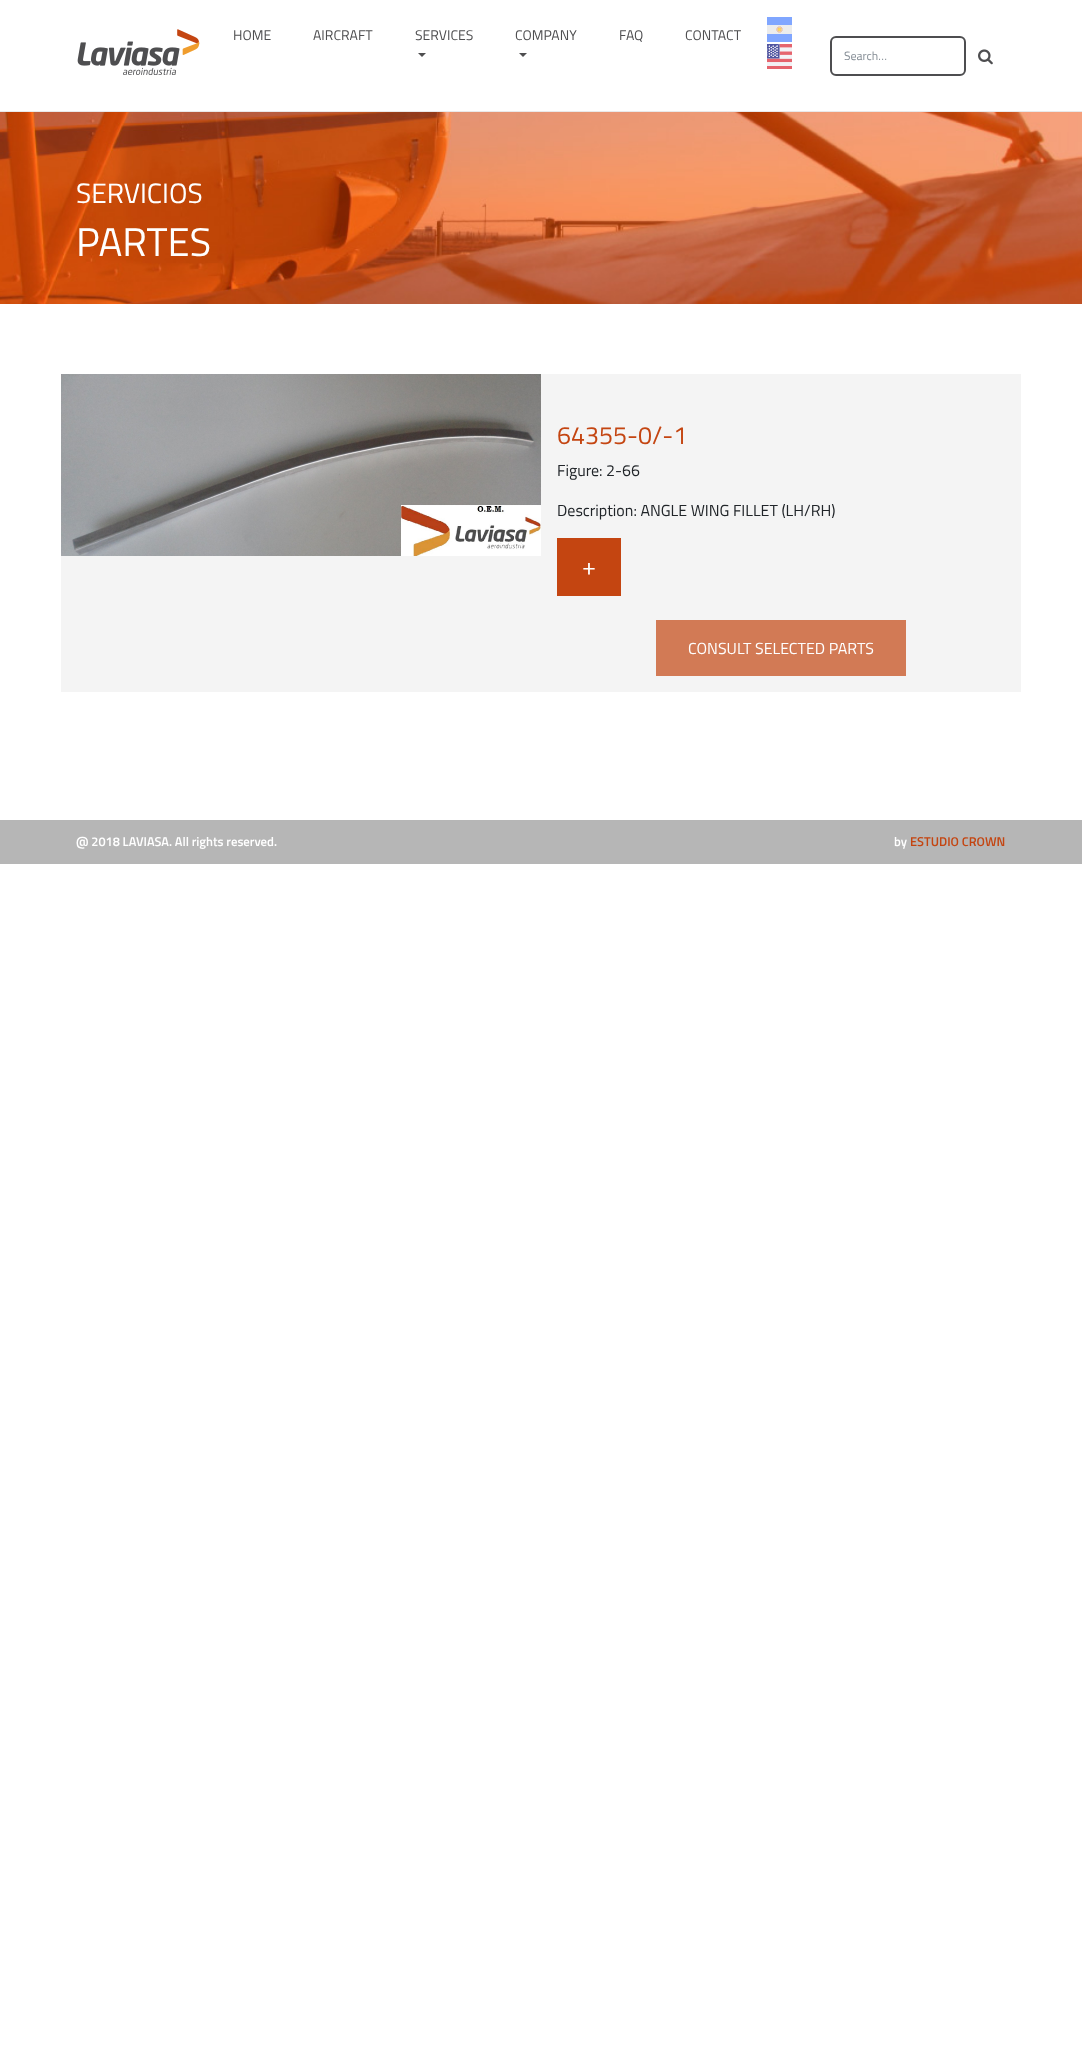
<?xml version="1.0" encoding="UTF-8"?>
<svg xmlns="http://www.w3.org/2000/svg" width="1082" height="2054">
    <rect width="100%" height="100%" fill="#FFFFFF"/>
    <rect x="0" y="111" width="1082" height="1" fill="#E9E9EA"/>
    <image x="77" y="29" width="123" height="46" href="img_01.png"/>
    <text x="233" y="40" font-family="Titillium Web" font-size="14" fill="#4E4E50">HOME</text>
    <text x="313" y="40" font-family="Titillium Web" font-size="14" fill="#4E4E50">AIRCRAFT</text>
    <text x="415" y="40" font-family="Titillium Web" font-size="14" fill="#4E4E50">SERVICES</text>
    <path d="M 418 53 H 426 L 422 57 Z" fill="#4E4E50"/>
    <text x="515" y="40" font-family="Titillium Web" font-size="14" fill="#4E4E50">COMPANY</text>
    <path d="M 519 53 H 527 L 523 57 Z" fill="#4E4E50"/>
    <text x="619" y="40" font-family="Titillium Web" font-size="14" fill="#4E4E50">FAQ</text>
    <text x="685" y="40" font-family="Titillium Web" font-size="14" fill="#4E4E50">CONTACT</text>
    <image x="767" y="17" width="25" height="25" href="img_02.png"/>
    <image x="767" y="44" width="25" height="25" href="img_03.png"/>
    <rect x="831" y="37" width="134" height="38" rx="5" fill="none" stroke="#4E4E50" stroke-width="2"/>
    <text x="844" y="60" font-family="Titillium Web" font-size="12" fill="#868E96">Search…</text>
    <image x="978" y="49" width="15" height="16" href="img_04.png"/>
    <image x="0" y="112" width="1082" height="192" href="img_05.png"/>
    <text x="76" y="203" font-family="Titillium Web" font-size="28" fill="#FFFFFF">SERVICIOS</text>
    <text x="76" y="256" font-family="Titillium Web" font-size="40" fill="#FFFFFF">PARTES</text>
    <rect x="61" y="556" width="480" height="136" fill="#F4F4F4"/>
    <image x="61" y="374" width="480" height="182" href="img_06.png"/>
    <rect x="541" y="374" width="480" height="318" fill="#F4F4F4"/>
    <text x="557" y="444" font-family="Titillium Web" font-size="25" fill="#C44511">64355-0/-1</text>
    <text x="557" y="476" font-family="Titillium Web" font-size="16" fill="#212529">Figure: 2-66</text>
    <text x="557" y="516" font-family="Titillium Web" font-size="16" fill="#212529">Description: ANGLE WING FILLET (LH/RH)</text>
    <rect x="557" y="538" width="64" height="58" fill="#C44511"/>
    <text x="582" y="575" font-family="Titillium Web" font-size="25" fill="#FFFFFF">+</text>
    <rect x="656" y="620" width="250" height="56" fill="#D27A55"/>
    <text x="688" y="654" font-family="Titillium Web" font-size="16" fill="#FFFFFF">CONSULT SELECTED PARTS</text>
    <rect x="0" y="820" width="1082" height="44" fill="#B6B6B6"/>
    <text x="76" y="846" font-family="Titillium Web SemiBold" font-size="12.75" font-weight="600" fill="#FFFFFF">@ 2018 LAVIASA. All rights reserved.</text>
    <text x="894" y="846" font-family="Titillium Web SemiBold" font-size="12.75" font-weight="600" fill="#FFFFFF">by</text>
    <text x="910" y="846" font-family="Titillium Web SemiBold" font-size="12.75" font-weight="600" fill="#C44511">ESTUDIO CROWN</text>
</svg>
